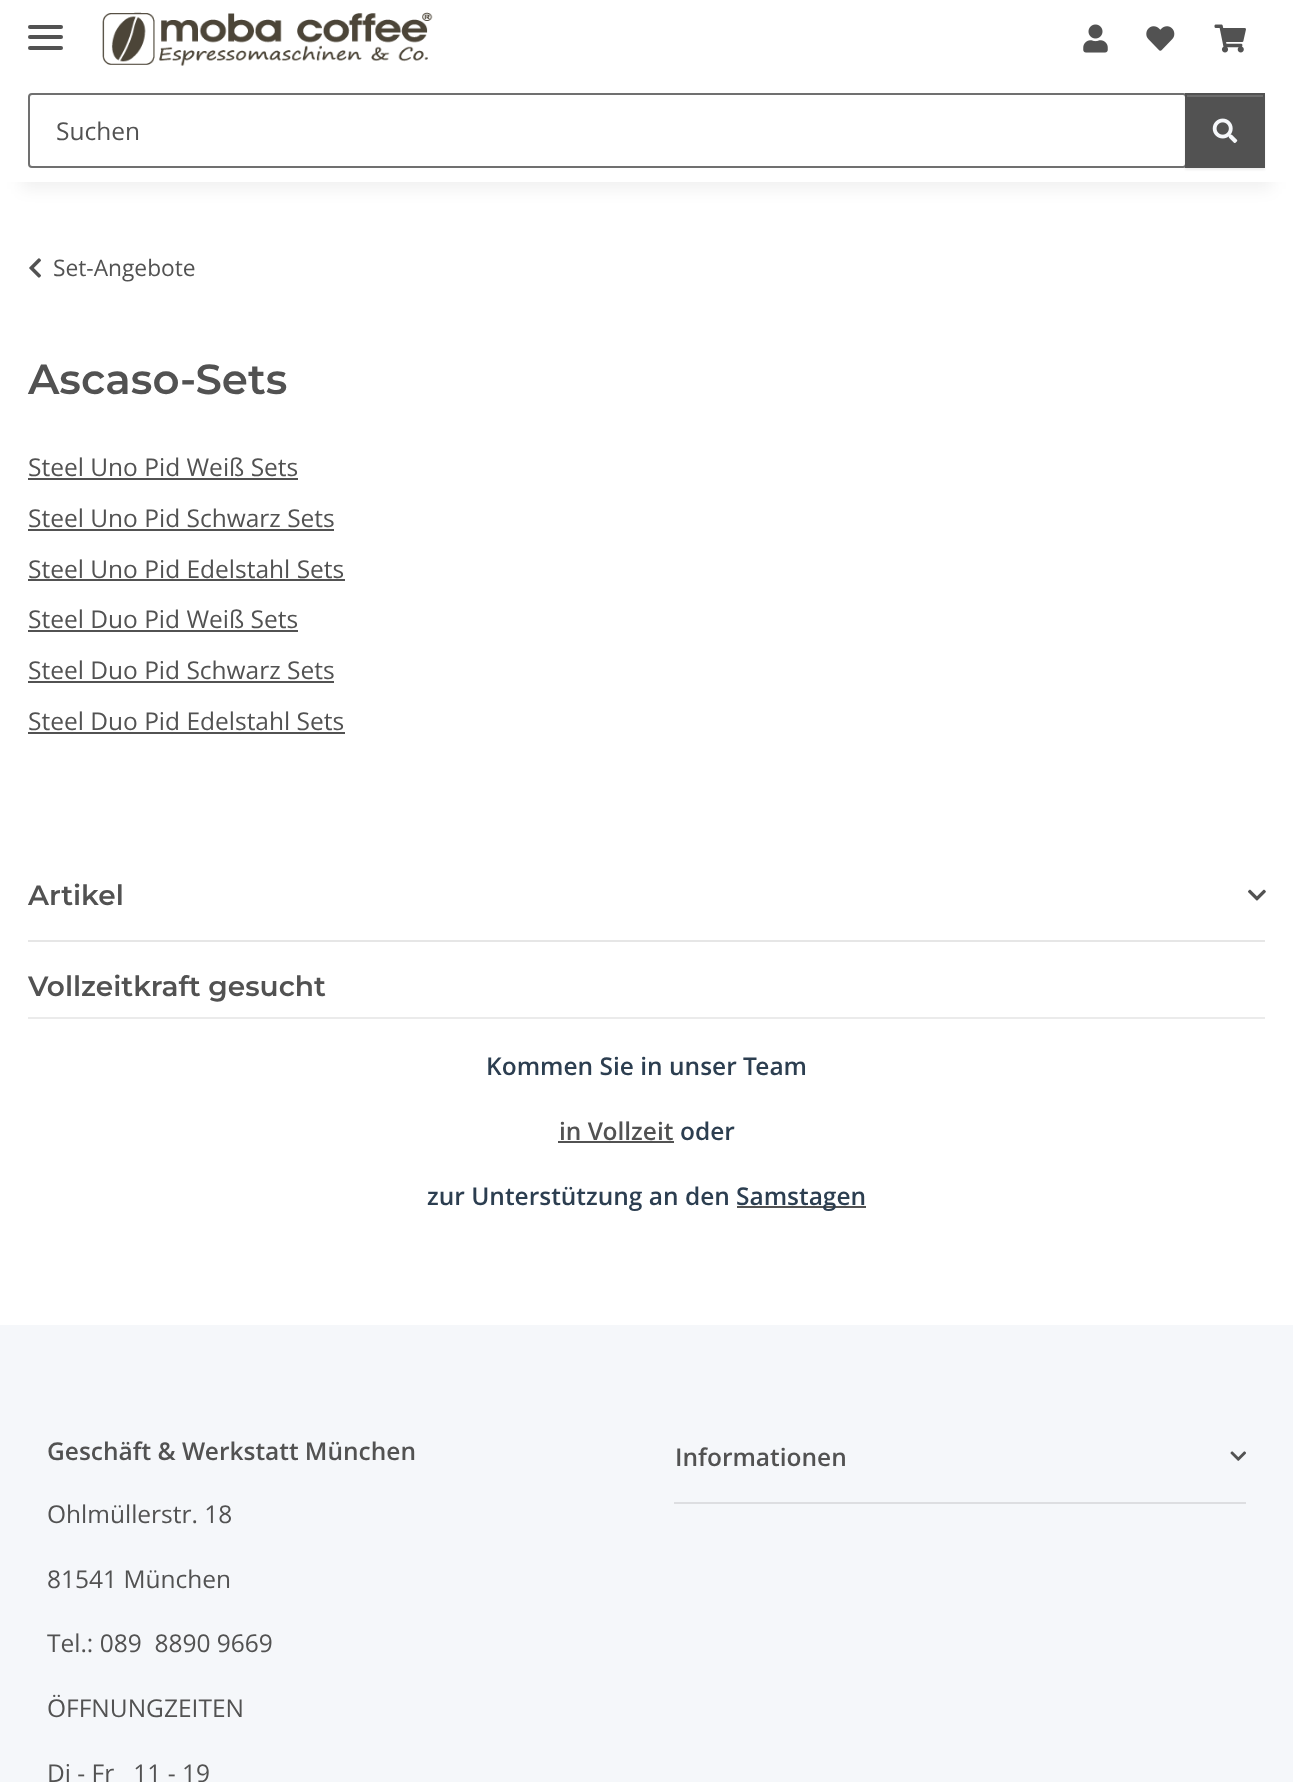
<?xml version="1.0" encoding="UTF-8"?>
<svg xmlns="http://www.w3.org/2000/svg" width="1293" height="1782">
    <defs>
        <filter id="blur1" x="-50%" y="-200%" width="200%" height="500%"><feGaussianBlur stdDeviation="8"/></filter>
        <filter id="blur2" x="-50%" y="-200%" width="200%" height="500%"><feGaussianBlur stdDeviation="1"/></filter>
    </defs>
    <rect width="100%" height="100%" fill="#F5F7FA"/>
    <rect x="0" y="182" width="1293" height="1143" fill="#FFFFFF"/>
    <rect x="21" y="49" width="1251" height="140" fill="#000000" fill-opacity="0.06" filter="url(#blur1)"/>
    <rect x="0" y="0" width="1293" height="182" fill="#FFFFFF"/>
    <rect x="28" y="35" width="35" height="4" rx="2" fill="#525252"/>
    <rect x="28" y="25" width="35" height="4" rx="2" fill="#525252"/>
    <rect x="28" y="46" width="35" height="4" rx="2" fill="#525252"/>
    <image x="102" y="12" width="331" height="54" href="img_01.png"/>
    <image x="1083" y="24" width="25" height="29" href="img_02.png"/>
    <image x="1146" y="26" width="29" height="25" href="img_03.png"/>
    <image x="1214" y="24" width="32" height="29" href="img_04.png"/>
    <rect x="29" y="94" width="1157" height="73" rx="3" fill="none" stroke="#707070" stroke-width="2"/>
    <text x="56" y="140" font-family="Open Sans" font-size="24.5" fill="#525252">Suchen</text>
    <rect x="1185" y="95" width="80" height="75" fill="#000000" fill-opacity="0.07" filter="url(#blur2)"/>
    <rect x="1187" y="97" width="76" height="69" fill="#525252"/>
    <rect x="1187" y="95" width="77" height="2" fill="#6C6C6C"/>
    <rect x="1186" y="94" width="78" height="73" fill="none" stroke="#525252" stroke-width="2"/>
    <image x="1212" y="118" width="26" height="25" href="img_05.png"/>
    <image x="29" y="258" width="12" height="20" href="img_06.png"/>
    <text x="53" y="276" font-family="Open Sans" font-size="22.75" fill="#525252">Set-Angebote</text>
    <text x="28" y="394" font-family="Montserrat" font-size="42" font-weight="600" fill="#525252">Ascaso-Sets</text>
    <text x="28" y="476" font-family="Open Sans" font-size="24.5" fill="#525252">Steel Uno Pid Weiß Sets</text>
    <rect x="28" y="478" width="270" height="2" fill="#525252"/>
    <text x="28" y="527" font-family="Open Sans" font-size="24.5" fill="#525252">Steel Uno Pid Schwarz Sets</text>
    <rect x="28" y="529" width="306" height="2" fill="#525252"/>
    <text x="28" y="578" font-family="Open Sans" font-size="24.5" fill="#525252">Steel Uno Pid Edelstahl Sets</text>
    <rect x="28" y="579" width="317" height="2" fill="#525252"/>
    <text x="28" y="628" font-family="Open Sans" font-size="24.5" fill="#525252">Steel Duo Pid Weiß Sets</text>
    <rect x="28" y="630" width="270" height="2" fill="#525252"/>
    <text x="28" y="679" font-family="Open Sans" font-size="24.5" fill="#525252">Steel Duo Pid Schwarz Sets</text>
    <rect x="28" y="681" width="306" height="2" fill="#525252"/>
    <text x="28" y="730" font-family="Open Sans" font-size="24.5" fill="#525252">Steel Duo Pid Edelstahl Sets</text>
    <rect x="28" y="732" width="317" height="2" fill="#525252"/>
    <text x="28" y="905" font-family="Montserrat" font-size="28" font-weight="600" fill="#525252">Artikel</text>
    <image x="1248" y="889" width="18" height="12" href="img_07.png"/>
    <rect x="28" y="940" width="1237" height="2" fill="#E6E6E6"/>
    <rect x="28" y="1017" width="1237" height="2" fill="#EBEBEB"/>
    <text x="28" y="996" font-family="Montserrat" font-size="28" font-weight="600" fill="#525252">Vollzeitkraft gesucht</text>
    <text x="486" y="1075" font-family="Open Sans" font-size="24.5" font-weight="600" fill="#2C3E50">Kommen Sie in unser Team</text>
    <text x="559" y="1140" font-family="Open Sans" font-size="24.5" font-weight="600" fill="#525252">in Vollzeit</text>
    <rect x="558" y="1141" width="116" height="2" fill="#525252"/>
    <text x="680" y="1140" font-family="Open Sans" font-size="24.5" font-weight="600" fill="#2C3E50">oder</text>
    <text x="427" y="1205" font-family="Open Sans" font-size="24.5" font-weight="600" fill="#2C3E50">zur Unterstützung an den</text>
    <rect x="737" y="1206" width="129" height="2" fill="#525252"/>
    <text x="736" y="1205" font-family="Open Sans" font-size="24.5" font-weight="600" fill="#2C3E50">Samstagen</text>
    <text x="47" y="1460" font-family="Open Sans" font-size="24.5" font-weight="600" fill="#525252">Geschäft &amp; Werkstatt München</text>
    <text x="47" y="1523" font-family="Open Sans" font-size="24.5" fill="#525252">Ohlmüllerstr. 18</text>
    <text x="47" y="1588" font-family="Open Sans" font-size="24.5" fill="#525252">81541 München</text>
    <text x="47" y="1652" font-family="Open Sans" font-size="24.5" fill="#525252" xml:space="preserve">Tel.: 089  8890 9669</text>
    <text x="47" y="1717" font-family="Open Sans" font-size="24.5" fill="#525252">ÖFFNUNGZEITEN</text>
    <text x="47" y="1782" font-family="Open Sans" font-size="24.5" fill="#525252" xml:space="preserve">Di - Fr   11 - 19</text>
    <text x="675" y="1466" font-family="Open Sans" font-size="24.5" font-weight="600" fill="#525252">Informationen</text>
    <image x="1230" y="1451" width="16" height="10" href="img_08.png"/>
    <rect x="674" y="1502" width="572" height="2" fill="#DDDEE1"/>
</svg>
